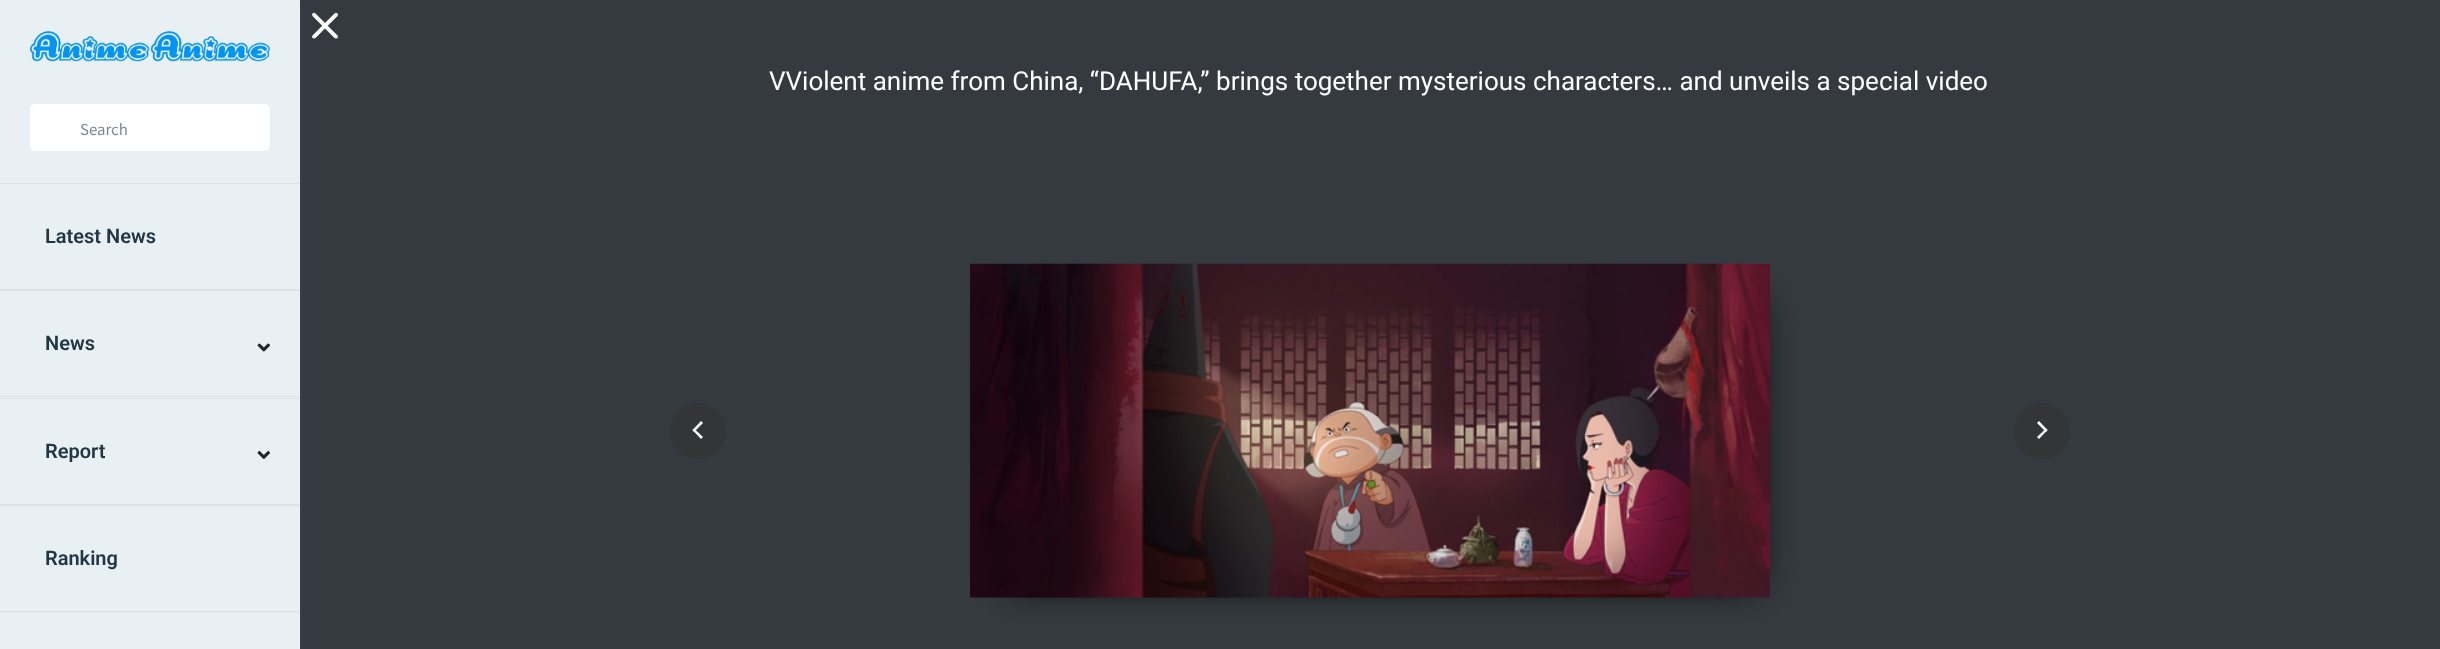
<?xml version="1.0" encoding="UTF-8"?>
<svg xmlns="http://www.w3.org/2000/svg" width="2440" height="649">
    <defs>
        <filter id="blur1" x="-50%" y="-200%" width="200%" height="500%"><feGaussianBlur stdDeviation="19"/></filter>
        <filter id="blur2" x="-50%" y="-200%" width="200%" height="500%"><feGaussianBlur stdDeviation="4"/></filter>
    </defs>
    <rect width="100%" height="100%" fill="#343A40"/>
    <path d="M 312.5 35.5 L 334.5 13.5 C 335.5 12.5 336.5 12.5 337.5 13.5 C 338 14 338 15 337.5 16 L 315.5 38 C 314.5 38.5 313.5 38.5 312.5 38 C 312 37.5 312 36 312.5 35.5 Z" fill="#FFFFFF"/>
    <path d="M 315.5 13.5 L 337.5 35.5 C 338 36 338 37.5 337.5 38 C 336.5 38.5 335.5 38.5 334.5 38 L 312.5 16 C 312 15 312 14 312.5 13.5 C 313.5 12.5 314.5 12.5 315.5 13.5 Z" fill="#FFFFFF"/>
    <text x="769" y="90" font-family="Roboto" font-size="26" fill="#FFFFFF">VViolent anime from China, “DAHUFA,” brings together mysterious characters… and unveils a special video</text>
    <rect x="1008" y="301" width="750" height="284" fill="#000000" filter="url(#blur1)"/>
    <image x="970" y="263" width="800" height="335" href="img_01.png"/>
    <circle cx="698" cy="431" r="28" fill="#333537"/>
    <path d="M 701 439 L 692.5 430 L 694 428.5 L 703 437 Z" fill="#FFFFFF"/>
    <path d="M 694 432 L 692.5 430 L 701 421 L 703 423 Z" fill="#FFFFFF"/>
    <circle cx="2042" cy="431" r="28" fill="#333537"/>
    <path d="M 2039 421 L 2047.5 430 L 2046 432 L 2037 423 Z" fill="#FFFFFF"/>
    <path d="M 2046 428.5 L 2047.5 430 L 2039 439 L 2037 437 Z" fill="#FFFFFF"/>
    <rect x="0" y="4" width="300" height="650" fill="#756CFE" fill-opacity="0.12" filter="url(#blur2)"/>
    <rect x="0" y="0" width="300" height="649" fill="#E9F0F4"/>
    <image x="30" y="31" width="240" height="31" href="img_02.png"/>
    <rect x="30" y="104" width="240" height="47" rx="5" fill="#FFFFFF"/>
    <text x="80" y="135" font-family="Noto Sans JP" font-size="15" fill="#7E8890">Search</text>
    <rect x="0" y="183" width="300" height="1" fill="#DEE2E6"/>
    <rect x="0" y="289" width="300" height="2" fill="#DEE2E6"/>
    <text x="45" y="243" font-family="Roboto" font-size="20" font-weight="600" fill="#223744">Latest News</text>
    <rect x="0" y="396" width="300" height="1" fill="#DEE2E6"/>
    <text x="45" y="350" font-family="Roboto" font-size="20" font-weight="600" fill="#223744">News</text>
    <image x="257" y="343" width="13" height="9" href="img_03.png"/>
    <rect x="0" y="398" width="300" height="1" fill="#DEE2E6"/>
    <rect x="0" y="504" width="300" height="2" fill="#DEE2E6"/>
    <text x="45" y="458" font-family="Roboto" font-size="20" font-weight="600" fill="#223744">Report</text>
    <image x="257" y="451" width="13" height="8" href="img_04.png"/>
    <rect x="0" y="611" width="300" height="1" fill="#DEE2E6"/>
    <text x="45" y="565" font-family="Roboto" font-size="20" font-weight="600" fill="#223744">Ranking</text>
</svg>
